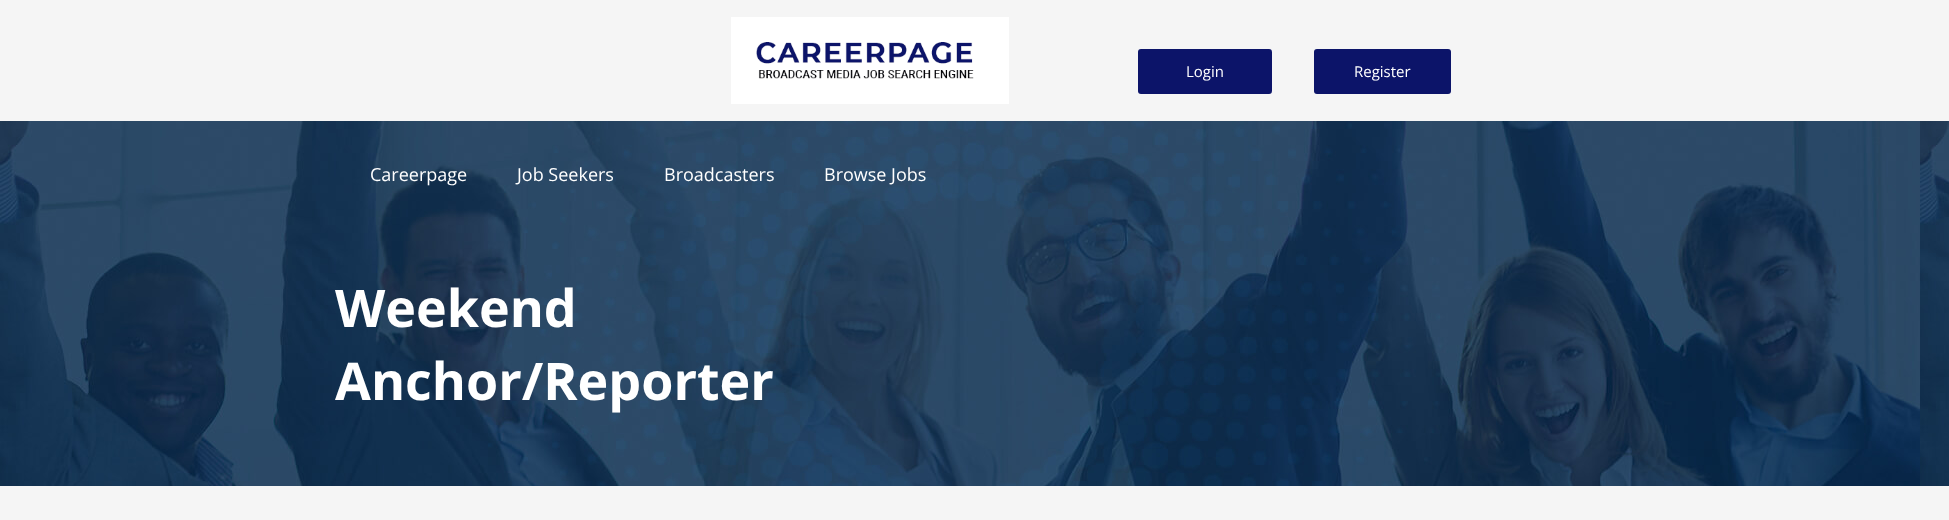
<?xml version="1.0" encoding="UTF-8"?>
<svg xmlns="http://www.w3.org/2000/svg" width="1949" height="520">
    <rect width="100%" height="100%" fill="#F5F5F5"/>
    <image x="731" y="17" width="278" height="87" href="img_01.png"/>
    <rect x="1138" y="49" width="134" height="45" rx="3" fill="#0C1469"/>
    <text x="1186" y="77" font-family="Open Sans" font-size="15" fill="#FFFFFF">Login</text>
    <rect x="1314" y="49" width="137" height="45" rx="3" fill="#0C1469"/>
    <text x="1354" y="77" font-family="Open Sans" font-size="15" fill="#FFFFFF">Register</text>
    <image x="0" y="121" width="1949" height="365" href="img_02.png"/>
    <text x="370" y="181" font-family="Open Sans" font-size="18" fill="#FFFFFF">Careerpage</text>
    <text x="517" y="181" font-family="Open Sans" font-size="18" fill="#FFFFFF">Job Seekers</text>
    <text x="664" y="181" font-family="Open Sans" font-size="18" fill="#FFFFFF">Broadcasters</text>
    <text x="824" y="181" font-family="Open Sans" font-size="18" fill="#FFFFFF">Browse Jobs</text>
    <text font-family="Open Sans" font-size="52" font-weight="700" fill="#FFFFFF">
        <tspan x="335" y="327">Weekend</tspan>
        <tspan x="335" y="400">Anchor/Reporter</tspan>
    </text>
</svg>
